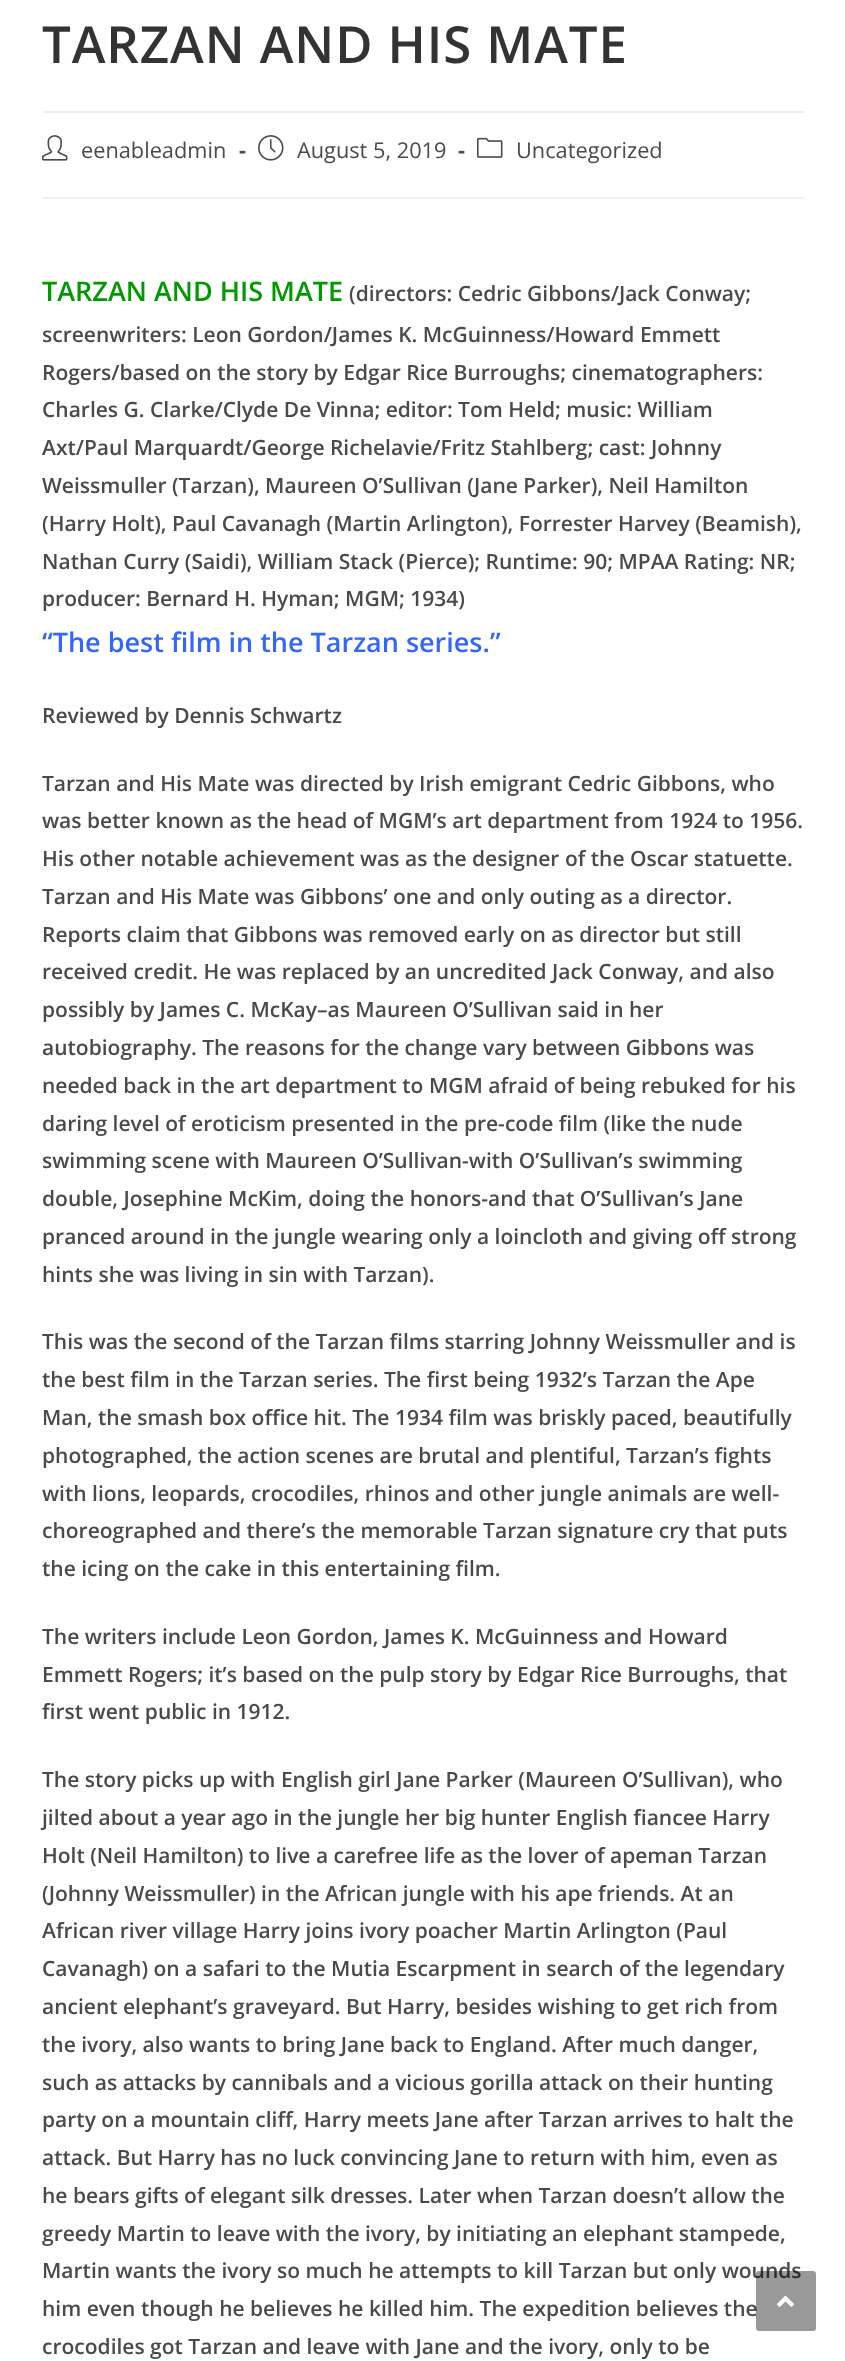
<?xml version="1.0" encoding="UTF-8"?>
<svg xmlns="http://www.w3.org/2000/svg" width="845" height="2361">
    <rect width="100%" height="100%" fill="#FFFFFF"/>
    <rect x="42" y="111" width="762" height="2" fill="#F1F1F1"/>
    <text x="42" y="63" font-family="Open Sans" font-size="51" font-weight="600" letter-spacing="0.9" fill="#333333">TARZAN AND HIS MATE</text>
    <rect x="42" y="197" width="762" height="2" fill="#F1F1F1"/>
    <image x="42" y="135" width="26" height="26" href="img_01.png"/>
    <text x="81" y="158" font-family="Open Sans" font-size="21.75" fill="#4A4A4A">eenableadmin</text>
    <text x="239" y="158" font-family="Open Sans" font-size="21.75" font-weight="700" fill="#4A4A4A">-</text>
    <image x="258" y="135" width="26" height="26" href="img_02.png"/>
    <text x="297" y="158" font-family="Open Sans" font-size="21.75" fill="#4A4A4A">August 5, 2019</text>
    <text x="458" y="158" font-family="Open Sans" font-size="21.75" font-weight="700" fill="#4A4A4A">-</text>
    <image x="477" y="137" width="26" height="21" href="img_03.png"/>
    <text x="516" y="158" font-family="Open Sans" font-size="21.75" fill="#4A4A4A">Uncategorized</text>
    <text x="42" y="301" font-family="Open Sans" font-size="27" font-weight="600" fill="#009900">TARZAN AND HIS MATE</text>
    <text x="349" y="301" font-family="Open Sans" font-size="21" font-weight="600" fill="#4A4A4A">(directors: Cedric Gibbons/Jack Conway;</text>
    <text font-family="Open Sans" font-size="21" font-weight="600" fill="#4A4A4A">
        <tspan x="42" y="342">screenwriters: Leon Gordon/James K. McGuinness/Howard Emmett</tspan>
        <tspan x="42" y="380">Rogers/based on the story by Edgar Rice Burroughs; cinematographers:</tspan>
        <tspan x="42" y="417">Charles G. Clarke/Clyde De Vinna; editor: Tom Held; music: William</tspan>
        <tspan x="42" y="455">Axt/Paul Marquardt/George Richelavie/Fritz Stahlberg; cast: Johnny</tspan>
        <tspan x="42" y="493">Weissmuller (Tarzan), Maureen O’Sullivan (Jane Parker), Neil Hamilton</tspan>
        <tspan x="42" y="531">(Harry Holt), Paul Cavanagh (Martin Arlington), Forrester Harvey (Beamish),</tspan>
        <tspan x="42" y="569">Nathan Curry (Saidi), William Stack (Pierce); Runtime: 90; MPAA Rating: NR;</tspan>
        <tspan x="42" y="606">producer: Bernard H. Hyman; MGM; 1934)</tspan>
    </text>
    <text x="42" y="652" font-family="Open Sans" font-size="27" font-weight="600" fill="#3366FF">“The best film in the Tarzan series.”</text>
    <text x="42" y="723" font-family="Open Sans" font-size="21" font-weight="600" fill="#4A4A4A">Reviewed by Dennis Schwartz</text>
    <text font-family="Open Sans" font-size="21" font-weight="600" fill="#4A4A4A">
        <tspan x="42" y="791">Tarzan and His Mate was directed by Irish emigrant Cedric Gibbons, who</tspan>
        <tspan x="42" y="828">was better known as the head of MGM’s art department from 1924 to 1956.</tspan>
        <tspan x="42" y="866">His other notable achievement was as the designer of the Oscar statuette.</tspan>
        <tspan x="42" y="904">Tarzan and His Mate was Gibbons’ one and only outing as a director.</tspan>
        <tspan x="42" y="942">Reports claim that Gibbons was removed early on as director but still</tspan>
        <tspan x="42" y="979">received credit. He was replaced by an uncredited Jack Conway, and also</tspan>
        <tspan x="42" y="1017">possibly by James C. McKay–as Maureen O’Sullivan said in her</tspan>
        <tspan x="42" y="1055">autobiography. The reasons for the change vary between Gibbons was</tspan>
        <tspan x="42" y="1093">needed back in the art department to MGM afraid of being rebuked for his</tspan>
        <tspan x="42" y="1131">daring level of eroticism presented in the pre-code film (like the nude</tspan>
        <tspan x="42" y="1168">swimming scene with Maureen O’Sullivan-with O’Sullivan’s swimming</tspan>
        <tspan x="42" y="1206">double, Josephine McKim, doing the honors-and that O’Sullivan’s Jane</tspan>
        <tspan x="42" y="1244">pranced around in the jungle wearing only a loincloth and giving off strong</tspan>
        <tspan x="42" y="1282">hints she was living in sin with Tarzan).</tspan>
    </text>
    <text font-family="Open Sans" font-size="21" font-weight="600" fill="#4A4A4A">
        <tspan x="42" y="1349">This was the second of the Tarzan films starring Johnny Weissmuller and is</tspan>
        <tspan x="42" y="1387">the best film in the Tarzan series. The first being 1932’s Tarzan the Ape</tspan>
        <tspan x="42" y="1425">Man, the smash box office hit. The 1934 film was briskly paced, beautifully</tspan>
        <tspan x="42" y="1463">photographed, the action scenes are brutal and plentiful, Tarzan’s fights</tspan>
        <tspan x="42" y="1501">with lions, leopards, crocodiles, rhinos and other jungle animals are well-</tspan>
        <tspan x="42" y="1538">choreographed and there’s the memorable Tarzan signature cry that puts</tspan>
        <tspan x="42" y="1576">the icing on the cake in this entertaining film.</tspan>
    </text>
    <text font-family="Open Sans" font-size="21" font-weight="600" fill="#4A4A4A">
        <tspan x="42" y="1644">The writers include Leon Gordon, James K. McGuinness and Howard</tspan>
        <tspan x="42" y="1682">Emmett Rogers; it’s based on the pulp story by Edgar Rice Burroughs, that</tspan>
        <tspan x="42" y="1719">first went public in 1912.</tspan>
    </text>
    <text font-family="Open Sans" font-size="21" font-weight="600" fill="#4A4A4A">
        <tspan x="42" y="1787">The story picks up with English girl Jane Parker (Maureen O’Sullivan), who</tspan>
        <tspan x="42" y="1825">jilted about a year ago in the jungle her big hunter English fiancee Harry</tspan>
        <tspan x="42" y="1863">Holt (Neil Hamilton) to live a carefree life as the lover of apeman Tarzan</tspan>
        <tspan x="42" y="1901">(Johnny Weissmuller) in the African jungle with his ape friends. At an</tspan>
        <tspan x="42" y="1938">African river village Harry joins ivory poacher Martin Arlington (Paul</tspan>
        <tspan x="42" y="1976">Cavanagh) on a safari to the Mutia Escarpment in search of the legendary</tspan>
        <tspan x="42" y="2014">ancient elephant’s graveyard. But Harry, besides wishing to get rich from</tspan>
        <tspan x="42" y="2052">the ivory, also wants to bring Jane back to England. After much danger,</tspan>
        <tspan x="42" y="2090">such as attacks by cannibals and a vicious gorilla attack on their hunting</tspan>
        <tspan x="42" y="2127">party on a mountain cliff, Harry meets Jane after Tarzan arrives to halt the</tspan>
        <tspan x="42" y="2165">attack. But Harry has no luck convincing Jane to return with him, even as</tspan>
        <tspan x="42" y="2203">he bears gifts of elegant silk dresses. Later when Tarzan doesn’t allow the</tspan>
        <tspan x="42" y="2241">greedy Martin to leave with the ivory, by initiating an elephant stampede,</tspan>
        <tspan x="42" y="2278">Martin wants the ivory so much he attempts to kill Tarzan but only wounds</tspan>
        <tspan x="42" y="2316">him even though he believes he killed him. The expedition believes the</tspan>
        <tspan x="42" y="2354">crocodiles got Tarzan and leave with Jane and the ivory, only to be</tspan>
    </text>
    <rect x="756" y="2271" width="60" height="60" rx="3" fill="#000000" fill-opacity="0.4"/>
    <image x="777" y="2296" width="17" height="11" href="img_04.png"/>
</svg>
